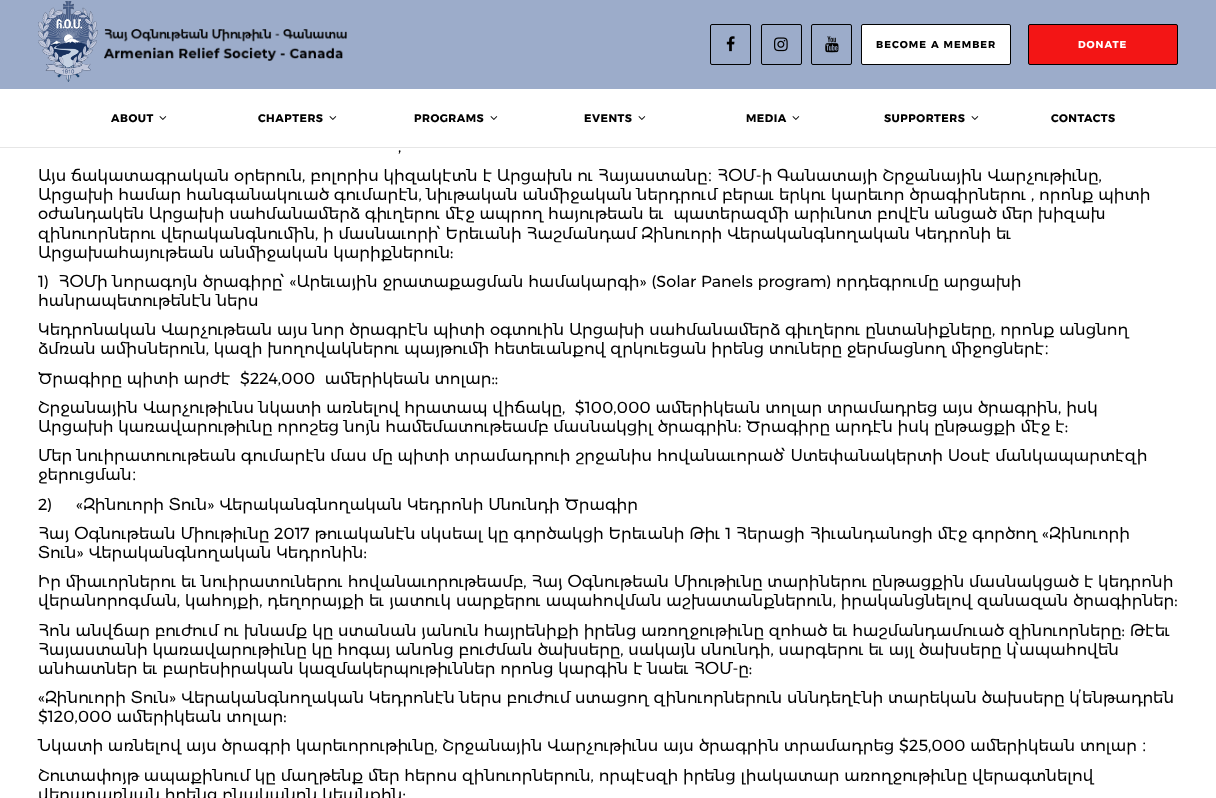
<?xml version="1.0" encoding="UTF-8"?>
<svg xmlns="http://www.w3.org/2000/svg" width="1216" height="798">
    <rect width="100%" height="100%" fill="#FFFFFF"/>
    <rect x="0" y="147" width="1216" height="1" fill="#E6E6E6"/>
    <rect x="0" y="0" width="1216" height="89" fill="#9CACCA"/>
    <image x="38" y="1" width="60" height="81" href="img_01.png"/>
    <image x="104" y="29" width="243" height="32" href="img_02.png"/>
    <rect x="710.5" y="24.5" width="40" height="40" rx="1.5" fill="none" stroke="#000000"/>
    <image x="726" y="36" width="9" height="16" href="img_03.png"/>
    <rect x="761.5" y="24.5" width="40" height="40" rx="1.5" fill="none" stroke="#000000"/>
    <image x="774" y="37" width="14" height="15" href="img_04.png"/>
    <rect x="811.5" y="24.5" width="40" height="40" rx="1.5" fill="none" stroke="#000000"/>
    <image x="825" y="36" width="14" height="17" href="img_05.png"/>
    <rect x="861.5" y="24.5" width="149" height="40" rx="1.5" fill="#FFFFFF" stroke="#000000"/>
    <text x="876" y="48" font-family="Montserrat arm" font-size="10" font-weight="700" letter-spacing="1" fill="#000000">BECOME A MEMBER</text>
    <rect x="1028.5" y="24.5" width="149" height="40" rx="1.5" fill="#F31515" stroke="#000000"/>
    <text x="1078" y="48" font-family="Montserrat arm" font-size="10" font-weight="700" letter-spacing="1" fill="#FFFFFF">DONATE</text>
    <text x="111" y="122" font-family="Montserrat arm" font-size="11" font-weight="700" letter-spacing="0.5" fill="#000000">ABOUT</text>
    <image x="159" y="116" width="8" height="4" href="img_06.png"/>
    <text x="258" y="122" font-family="Montserrat arm" font-size="11" font-weight="700" letter-spacing="0.5" fill="#000000">CHAPTERS</text>
    <image x="329" y="116" width="8" height="4" href="img_06.png"/>
    <text x="414" y="122" font-family="Montserrat arm" font-size="11" font-weight="700" letter-spacing="0.5" fill="#000000">PROGRAMS</text>
    <image x="490" y="116" width="8" height="4" href="img_06.png"/>
    <text x="584" y="122" font-family="Montserrat arm" font-size="11" font-weight="700" letter-spacing="0.5" fill="#000000">EVENTS</text>
    <image x="638" y="116" width="8" height="4" href="img_06.png"/>
    <text x="746" y="122" font-family="Montserrat arm" font-size="11" font-weight="700" letter-spacing="0.5" fill="#000000">MEDIA</text>
    <image x="792" y="116" width="8" height="4" href="img_06.png"/>
    <text x="884" y="122" font-family="Montserrat arm" font-size="11" font-weight="700" letter-spacing="0.5" fill="#000000">SUPPORTERS</text>
    <image x="971" y="116" width="8" height="4" href="img_06.png"/>
    <text x="1051" y="122" font-family="Montserrat arm" font-size="11" font-weight="700" letter-spacing="0.5" fill="#000000">CONTACTS</text>
    <text x="398" y="152" font-family="Montserrat arm" font-size="16" fill="#000000">,</text>
    <text font-family="Montserrat arm" font-size="16" fill="#000000" xml:space="preserve"><tspan x="38" y="181">Այս ճակատագրական օրերուն, բոլորիս կիզակէտն է Արցախն ու Հայաստանը։ ՀՕՄ-ի Գանատայի Շրջանային Վարչութիւնը,</tspan><tspan x="38" y="200">Արցախի համար հանգանակուած գումարէն, նիւթական անմիջական ներդրում բերաւ երկու կարեւոր ծրագիրներու , որոնք պիտի</tspan><tspan x="38" y="219">օժանդակեն Արցախի սահմանամերձ գիւղերու մէջ ապրող հայութեան եւ  պատերազմի արիւնոտ բովէն անցած մեր խիզախ</tspan><tspan x="38" y="239">զինուորներու վերականգնումին, ի մասնաւորի՝ Երեւանի Հաշմանդամ Զինուորի Վերականգնողական Կեդրոնի եւ</tspan><tspan x="38" y="258">Արցախահայութեան անմիջական կարիքներուն:</tspan><tspan x="38" y="287">1)  ՀՕՄի նորագոյն ծրագիրը՝ «Արեւային ջրատաքացման համակարգի» (Solar Panels program) որդեգրումը արցախի</tspan><tspan x="38" y="306">հանրապետութենէն ներս</tspan><tspan x="38" y="335">Կեդրոնական Վարչութեան այս նոր ծրագրէն պիտի օգտուին Արցախի սահմանամերձ գիւղերու ընտանիքները, որոնք անցնող</tspan><tspan x="38" y="354">ձմռան ամիսներուն, կազի խողովակներու պայթումի հետեւանքով զրկուեցան իրենց տուները ջերմացնող միջոցներէ։</tspan><tspan x="38" y="384">Ծրագիրը պիտի արժէ  $224,000  ամերիկեան տոլար::</tspan><tspan x="38" y="413">Շրջանային Վարչութիւնս նկատի առնելով հրատապ վիճակը,  $100,000 ամերիկեան տոլար տրամադրեց այս ծրագրին, իսկ</tspan><tspan x="38" y="432">Արցախի կառավարութիւնը որոշեց նոյն համեմատութեամբ մասնակցիլ ծրագրին: Ծրագիրը արդէն իսկ ընթացքի մէջ է:</tspan><tspan x="38" y="461">Մեր նուիրատուութեան գումարէն մաս մը պիտի տրամադրուի շրջանիս հովանաւորած՝ Ստեփանակերտի Սօսէ մանկապարտէզի</tspan><tspan x="38" y="480">ջերուցման։</tspan><tspan x="38" y="510">2)     «Զինուորի Տուն» Վերականգնողական Կեդրոնի Սնունդի Ծրագիր</tspan><tspan x="38" y="539">Հայ Օգնութեան Միութիւնը 2017 թուականէն սկսեալ կը գործակցի Երեւանի Թիւ 1 Հերացի Հիւանդանոցի մէջ գործող «Զինուորի</tspan><tspan x="38" y="558">Տուն» Վերականգնողական Կեդրոնին:</tspan><tspan x="38" y="587">Իր միաւորներու եւ նուիրատուներու հովանաւորութեամբ, Հայ Օգնութեան Միութիւնը տարիներու ընթացքին մասնակցած է կեդրոնի</tspan><tspan x="38" y="606">վերանորոգման, կահոյքի, դեղորայքի եւ յատուկ սարքերու ապահովման աշխատանքներուն, իրականցնելով զանազան ծրագիրներ:</tspan><tspan x="38" y="636">Հոն անվճար բուժում ու խնամք կը ստանան յանուն հայրենիքի իրենց առողջութիւնը զոհած եւ հաշմանդամուած զինուորները: Թէեւ</tspan><tspan x="38" y="655">Հայաստանի կառավարութիւնը կը հոգայ անոնց բուժման ծախսերը, սակայն սնունդի, սարգերու եւ այլ ծախսերը կ՝ապահովեն</tspan><tspan x="38" y="674">անհատներ եւ բարեսիրական կազմակերպութիւններ որոնց կարգին է նաեւ ՀՕՄ-ը:</tspan><tspan x="38" y="703">«Զինուորի Տուն» Վերականգնողական Կեդրոնէն ներս բուժում ստացող զինուորներուն սննդեղէնի տարեկան ծախսերը կ՚ենթադրեն</tspan><tspan x="38" y="722">$120,000 ամերիկեան տոլար:</tspan><tspan x="38" y="751">Նկատի առնելով այս ծրագրի կարեւորութիւնը, Շրջանային Վարչութիւնս այս ծրագրին տրամադրեց $25,000 ամերիկեան տոլար ։</tspan><tspan x="38" y="781">Շուտափոյթ ապաքինում կը մաղթենք մեր հերոս զինուորներուն, որպէսզի իրենց լիակատար առողջութիւնը վերագտնելով</tspan><tspan x="38" y="800">վերադառնան իրենց բնականոն կեանքին:</tspan></text>
</svg>
